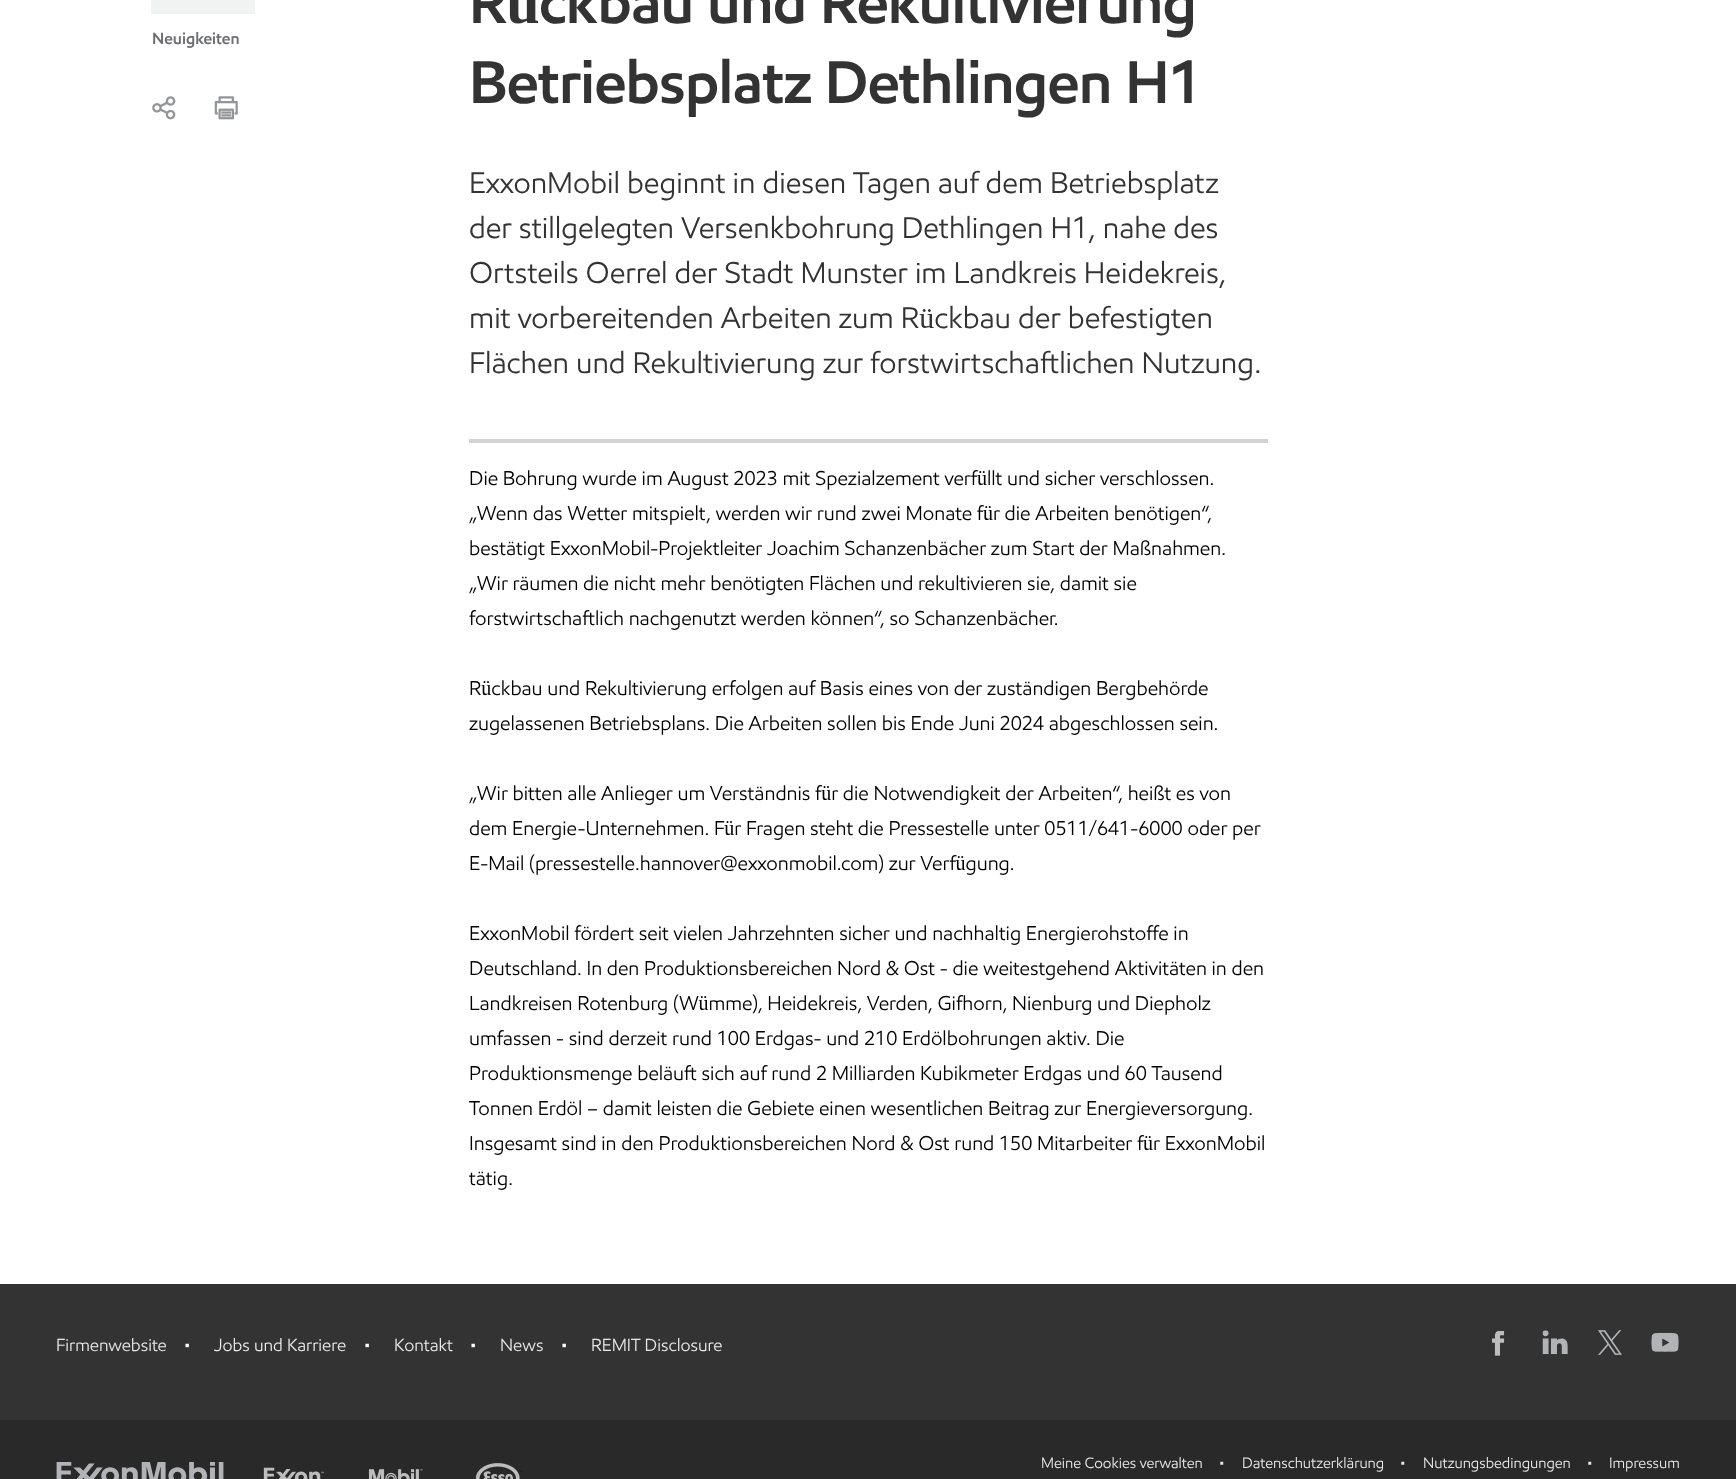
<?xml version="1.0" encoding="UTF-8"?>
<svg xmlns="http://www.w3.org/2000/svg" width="1736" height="1479">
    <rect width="100%" height="100%" fill="#FFFFFF"/>
    <rect x="151" y="0" width="104" height="14" fill="#F1F2F2"/>
    <text x="152" y="44" font-family="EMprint" font-size="16.25" font-weight="600" fill="#6D6E71">Neuigkeiten</text>
    <image x="152" y="96" width="24" height="24" href="img_01.png"/>
    <image x="214" y="96" width="24" height="24" href="img_02.png"/>
    <text font-family="EMprint" font-size="60" font-weight="600" letter-spacing="-0.6" fill="#333333">
        <tspan x="469" y="23">Rückbau und Rekultivierung</tspan>
        <tspan x="469" y="103">Betriebsplatz Dethlingen H1</tspan>
    </text>
    <text font-family="EMprint" font-size="30" fill="#333333">
        <tspan x="469" y="193">ExxonMobil beginnt in diesen Tagen auf dem Betriebsplatz</tspan>
        <tspan x="469" y="238">der stillgelegten Versenkbohrung Dethlingen H1, nahe des</tspan>
        <tspan x="469" y="283">Ortsteils Oerrel der Stadt Munster im Landkreis Heidekreis,</tspan>
        <tspan x="469" y="328">mit vorbereitenden Arbeiten zum Rückbau der befestigten</tspan>
        <tspan x="469" y="373">Flächen und Rekultivierung zur forstwirtschaftlichen Nutzung.</tspan>
    </text>
    <rect x="469" y="439" width="799" height="4" fill="#D1D3D4"/>
    <text font-family="EMprint" font-size="20" fill="#000000">
        <tspan x="469" y="485">Die Bohrung wurde im August 2023 mit Spezialzement verfüllt und sicher verschlossen.</tspan>
        <tspan x="469" y="520">„Wenn das Wetter mitspielt, werden wir rund zwei Monate für die Arbeiten benötigen“,</tspan>
        <tspan x="469" y="555">bestätigt ExxonMobil-Projektleiter Joachim Schanzenbächer zum Start der Maßnahmen.</tspan>
        <tspan x="469" y="590">„Wir räumen die nicht mehr benötigten Flächen und rekultivieren sie, damit sie</tspan>
        <tspan x="469" y="625">forstwirtschaftlich nachgenutzt werden können“, so Schanzenbächer.</tspan>
    </text>
    <text font-family="EMprint" font-size="20" fill="#000000">
        <tspan x="469" y="695">Rückbau und Rekultivierung erfolgen auf Basis eines von der zuständigen Bergbehörde</tspan>
        <tspan x="469" y="730">zugelassenen Betriebsplans. Die Arbeiten sollen bis Ende Juni 2024 abgeschlossen sein.</tspan>
    </text>
    <text font-family="EMprint" font-size="20" fill="#000000">
        <tspan x="469" y="800">„Wir bitten alle Anlieger um Verständnis für die Notwendigkeit der Arbeiten“, heißt es von</tspan>
        <tspan x="469" y="835">dem Energie-Unternehmen. Für Fragen steht die Pressestelle unter 0511/641-6000 oder per</tspan>
        <tspan x="469" y="870">E-Mail (pressestelle.hannover@exxonmobil.com) zur Verfügung.</tspan>
    </text>
    <text font-family="EMprint" font-size="20" fill="#000000">
        <tspan x="469" y="940">ExxonMobil fördert seit vielen Jahrzehnten sicher und nachhaltig Energierohstoffe in</tspan>
        <tspan x="469" y="975">Deutschland. In den Produktionsbereichen Nord &amp; Ost - die weitestgehend Aktivitäten in den</tspan>
        <tspan x="469" y="1010">Landkreisen Rotenburg (Wümme), Heidekreis, Verden, Gifhorn, Nienburg und Diepholz</tspan>
        <tspan x="469" y="1045">umfassen - sind derzeit rund 100 Erdgas- und 210 Erdölbohrungen aktiv. Die</tspan>
        <tspan x="469" y="1080">Produktionsmenge beläuft sich auf rund 2 Milliarden Kubikmeter Erdgas und 60 Tausend</tspan>
        <tspan x="469" y="1115">Tonnen Erdöl – damit leisten die Gebiete einen wesentlichen Beitrag zur Energieversorgung.</tspan>
        <tspan x="469" y="1150">Insgesamt sind in den Produktionsbereichen Nord &amp; Ost rund 150 Mitarbeiter für ExxonMobil</tspan>
        <tspan x="469" y="1185">tätig.</tspan>
    </text>
    <rect x="0" y="1284" width="1736" height="136" fill="#333333"/>
    <text x="56" y="1351" font-family="EMprint" font-size="17.5" fill="#E6E7E8">Firmenwebsite</text>
    <text x="184" y="1351" font-family="EMprint" font-size="17.5" fill="#FFFFFF">•</text>
    <text x="214" y="1351" font-family="EMprint" font-size="17.5" fill="#E6E7E8">Jobs und Karriere</text>
    <text x="364" y="1351" font-family="EMprint" font-size="17.5" fill="#FFFFFF">•</text>
    <text x="394" y="1351" font-family="EMprint" font-size="17.5" fill="#E6E7E8">Kontakt</text>
    <text x="470" y="1351" font-family="EMprint" font-size="17.5" fill="#FFFFFF">•</text>
    <text x="500" y="1351" font-family="EMprint" font-size="17.5" fill="#E6E7E8">News</text>
    <text x="561" y="1351" font-family="EMprint" font-size="17.5" fill="#FFFFFF">•</text>
    <text x="591" y="1351" font-family="EMprint" font-size="17.5" fill="#E6E7E8">REMIT Disclosure</text>
    <image x="1492" y="1331" width="13" height="25" href="img_03.png"/>
    <image x="1542" y="1330" width="26" height="25" href="img_04.png"/>
    <image x="1598" y="1330" width="24" height="25" href="img_05.png"/>
    <image x="1651" y="1332" width="28" height="20" href="img_06.png"/>
    <rect x="0" y="1420" width="1736" height="59" fill="#292929"/>
    <image x="56" y="1462" width="168" height="17" href="img_07.png"/>
    <image x="263" y="1467" width="61" height="12" href="img_08.png"/>
    <image x="368" y="1469" width="55" height="10" href="img_09.png"/>
    <image x="475" y="1463" width="47" height="16" href="img_10.png"/>
    <text x="1041" y="1468" font-family="EMprint" font-size="15" fill="#E6E7E8">Meine Cookies verwalten</text>
    <text x="1219" y="1468" font-family="EMprint" font-size="15" fill="#E6E7E8">•</text>
    <text x="1242" y="1468" font-family="EMprint" font-size="15" fill="#E6E7E8">Datenschutzerklärung</text>
    <text x="1400" y="1468" font-family="EMprint" font-size="15" fill="#E6E7E8">•</text>
    <text x="1423" y="1468" font-family="EMprint" font-size="15" fill="#E6E7E8">Nutzungsbedingungen</text>
    <text x="1587" y="1468" font-family="EMprint" font-size="15" fill="#E6E7E8">•</text>
    <text x="1609" y="1468" font-family="EMprint" font-size="15" fill="#E6E7E8">Impressum</text>
</svg>
